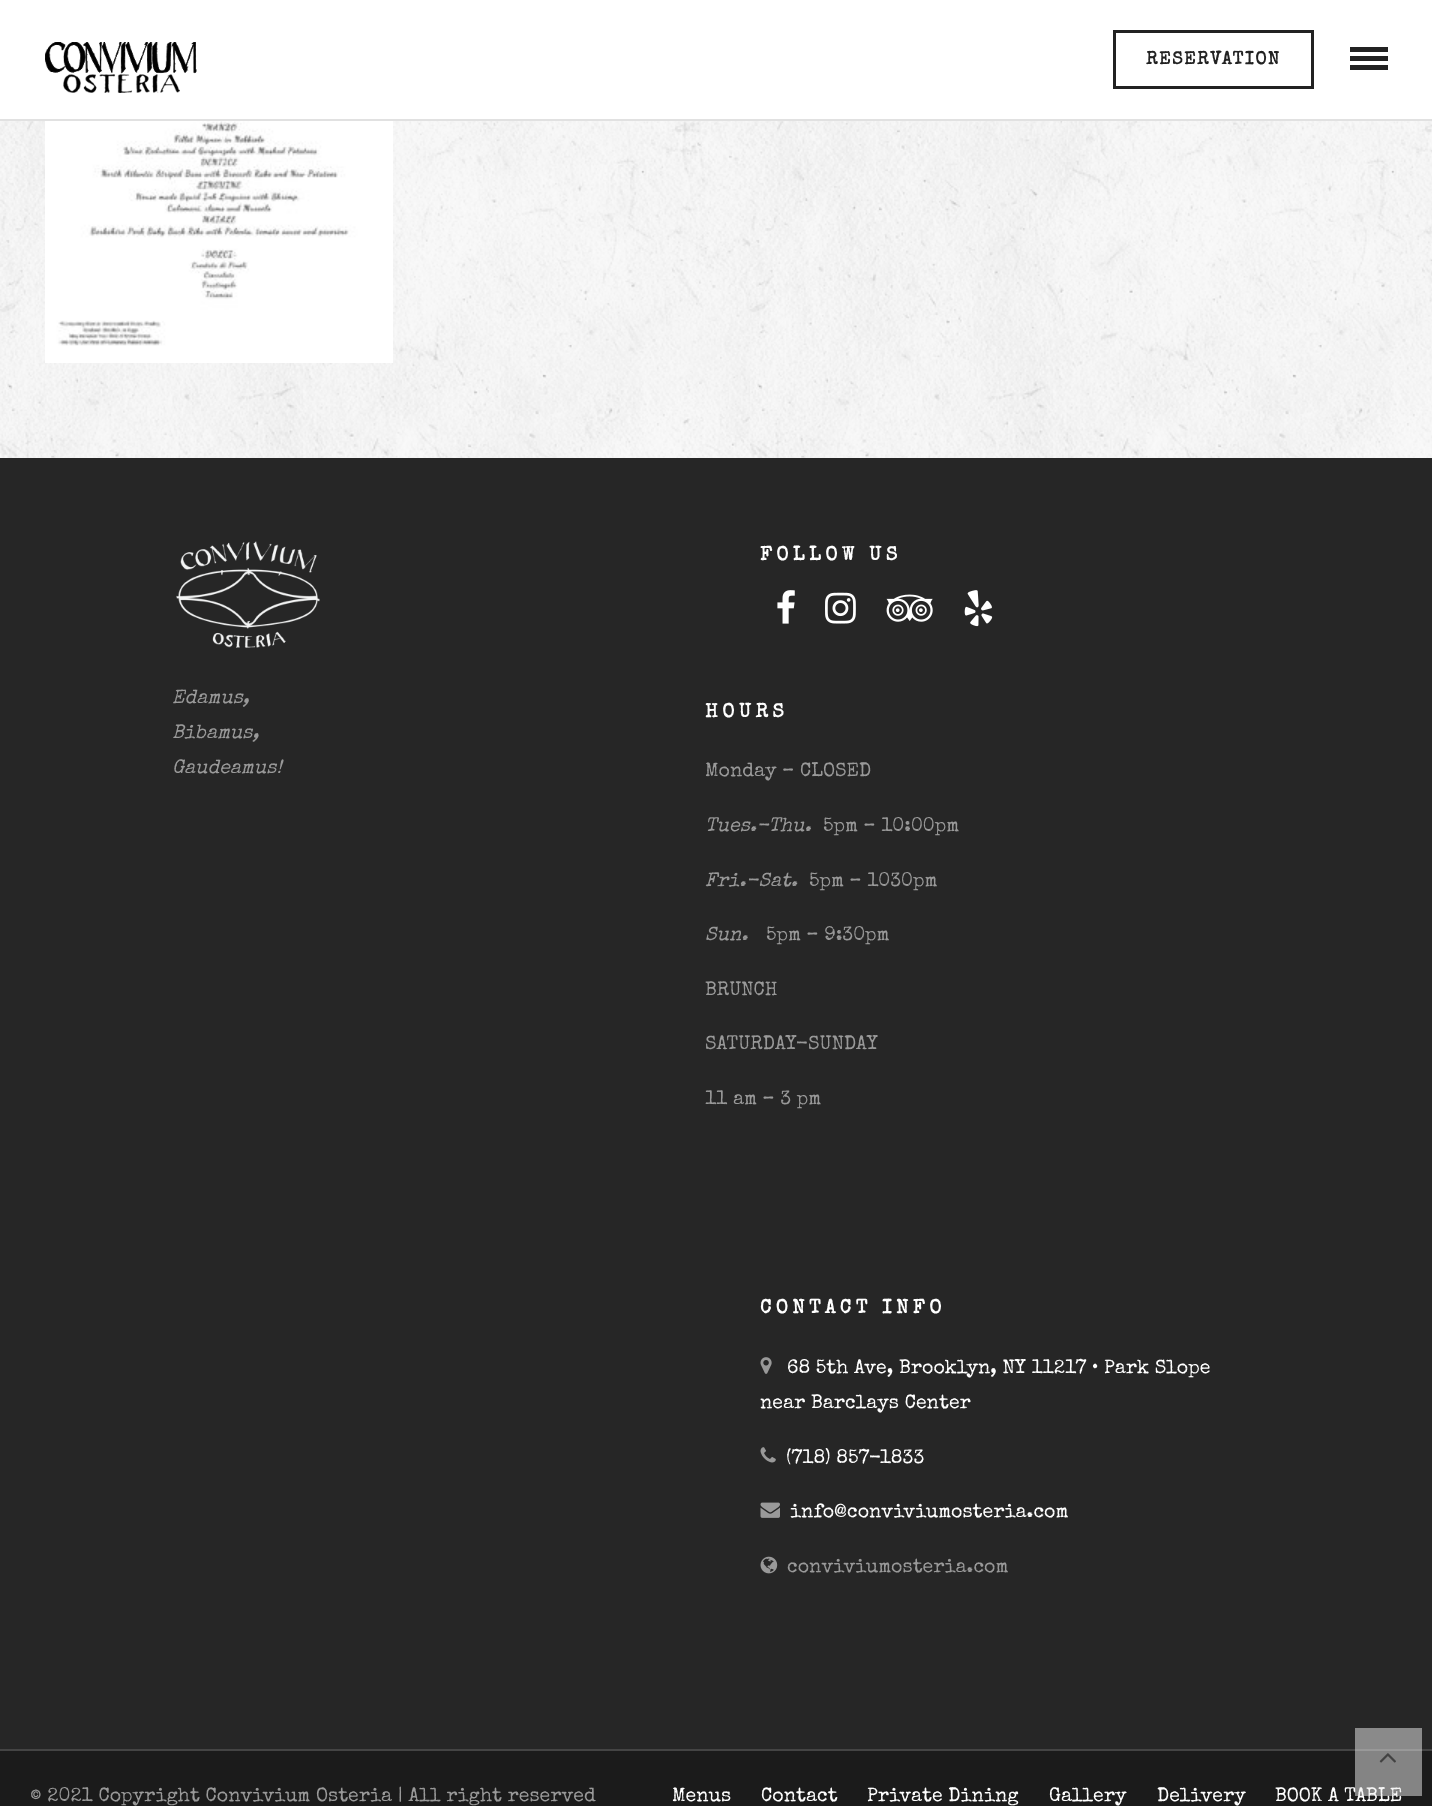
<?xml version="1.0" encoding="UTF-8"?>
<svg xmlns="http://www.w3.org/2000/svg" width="1432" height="1806">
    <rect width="100%" height="100%" fill="#FFFFFF"/>
    <image x="0" y="121" width="1432" height="337" href="img_01.png"/>
    <rect x="0" y="119" width="1432" height="2" fill="#E1E1E1"/>
    <image x="45" y="42" width="152" height="51" href="img_02.png"/>
    <rect x="1114.5" y="31.5" width="198" height="56" fill="none" stroke="#222222" stroke-width="3"/>
    <text x="1146" y="64" font-family="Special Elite" font-size="18" font-weight="700" letter-spacing="1.5" fill="#222222">RESERVATION</text>
    <rect x="1350" y="47" width="38" height="5" fill="#222222"/>
    <rect x="1350" y="56" width="38" height="5" fill="#222222"/>
    <rect x="1350" y="65" width="38" height="5" fill="#222222"/>
    <image x="45" y="121" width="348" height="242" href="img_03.png"/>
    <rect x="0" y="458" width="1432" height="1291" fill="#262626"/>
    <text x="760" y="560" font-family="Special Elite" font-size="19.5" font-weight="700" letter-spacing="4.5" fill="#FFFFFF">FOLLOW US</text>
    <image x="777" y="590" width="18" height="34" href="img_04.png"/>
    <image x="825" y="592" width="31" height="32" href="img_05.png"/>
    <image x="886" y="594" width="47" height="28" href="img_06.png"/>
    <image x="964" y="590" width="29" height="37" href="img_07.png"/>
    <image x="176" y="541" width="144" height="107" href="img_08.png"/>
    <text font-family="Special Elite" font-size="19.5" font-style="italic" fill="#999999">
        <tspan x="172" y="703">Edamus,</tspan>
        <tspan x="172" y="738">Bibamus,</tspan>
        <tspan x="172" y="773">Gaudeamus!</tspan>
    </text>
    <text x="705" y="717" font-family="Special Elite" font-size="19.5" font-weight="700" letter-spacing="4.5" fill="#FFFFFF">HOURS</text>
    <text x="705" y="776" font-family="Special Elite" font-size="19.5" fill="#999999">Monday – CLOSED</text>
    <text x="705" y="831" font-family="Special Elite" font-size="19.5" font-style="italic" fill="#999999">Tues.-Thu.</text>
    <text x="823" y="831" font-family="Special Elite" font-size="19.5" fill="#999999">5pm – 10:00pm</text>
    <text x="705" y="886" font-family="Special Elite" font-size="19.5" font-style="italic" fill="#999999">Fri.-Sat.</text>
    <text x="809" y="886" font-family="Special Elite" font-size="19.5" fill="#999999">5pm – 1030pm</text>
    <text x="705" y="940" font-family="Special Elite" font-size="19.5" font-style="italic" fill="#999999">Sun.</text>
    <text x="766" y="940" font-family="Special Elite" font-size="19.5" fill="#999999">5pm – 9:30pm</text>
    <text x="705" y="995" font-family="Special Elite" font-size="19.5" fill="#999999">BRUNCH</text>
    <text x="705" y="1049" font-family="Special Elite" font-size="19.5" fill="#999999">SATURDAY-SUNDAY</text>
    <text x="705" y="1104" font-family="Special Elite" font-size="19.5" fill="#999999">11 am – 3 pm</text>
    <text x="760" y="1313" font-family="Special Elite" font-size="19.5" font-weight="700" letter-spacing="4.5" fill="#FFFFFF">CONTACT INFO</text>
    <image x="760" y="1357" width="12" height="17" href="img_09.png"/>
    <text x="787" y="1373" font-family="Special Elite" font-size="19.5" fill="#FFFFFF">68 5th Ave, Brooklyn, NY 11217 • Park Slope</text>
    <text x="760" y="1408" font-family="Special Elite" font-size="19.5" fill="#FFFFFF">near Barclays Center</text>
    <image x="760" y="1447" width="16" height="16" href="img_10.png"/>
    <text x="786" y="1463" font-family="Special Elite" font-size="19.5" fill="#FFFFFF">(718) 857-1833</text>
    <image x="760" y="1502" width="20" height="16" href="img_11.png"/>
    <text x="790" y="1517" font-family="Special Elite" font-size="19.5" fill="#FFFFFF">info@conviviumosteria.com</text>
    <image x="760" y="1556" width="18" height="18" href="img_12.png"/>
    <text x="787" y="1572" font-family="Special Elite" font-size="19.5" fill="#999999">conviviumosteria.com</text>
    <rect x="0" y="1751" width="1432" height="55" fill="#1B1B1B"/>
    <rect x="0" y="1749" width="1432" height="2" fill="#444444"/>
    <text x="30" y="1801" font-family="Special Elite" font-size="19.5" fill="#999999">© 2021 Copyright Convivium Osteria | All right reserved</text>
    <text x="1275" y="1801" font-family="Special Elite" font-size="19.5" fill="#FFFFFF">BOOK A TABLE</text>
    <rect x="1355" y="1728" width="67" height="68" fill="#EEEEEE" fill-opacity="0.5"/>
    <image x="1379" y="1753" width="17" height="10" href="img_13.png"/>
    <text x="672" y="1801" font-family="Special Elite" font-size="19.5" fill="#FFFFFF">Menus</text>
    <text x="761" y="1801" font-family="Special Elite" font-size="19.5" fill="#FFFFFF">Contact</text>
    <text x="867" y="1801" font-family="Special Elite" font-size="19.5" fill="#FFFFFF">Private Dining</text>
    <text x="1049" y="1801" font-family="Special Elite" font-size="19.5" fill="#FFFFFF">Gallery</text>
    <text x="1157" y="1801" font-family="Special Elite" font-size="19.5" fill="#FFFFFF">Delivery</text>
</svg>
